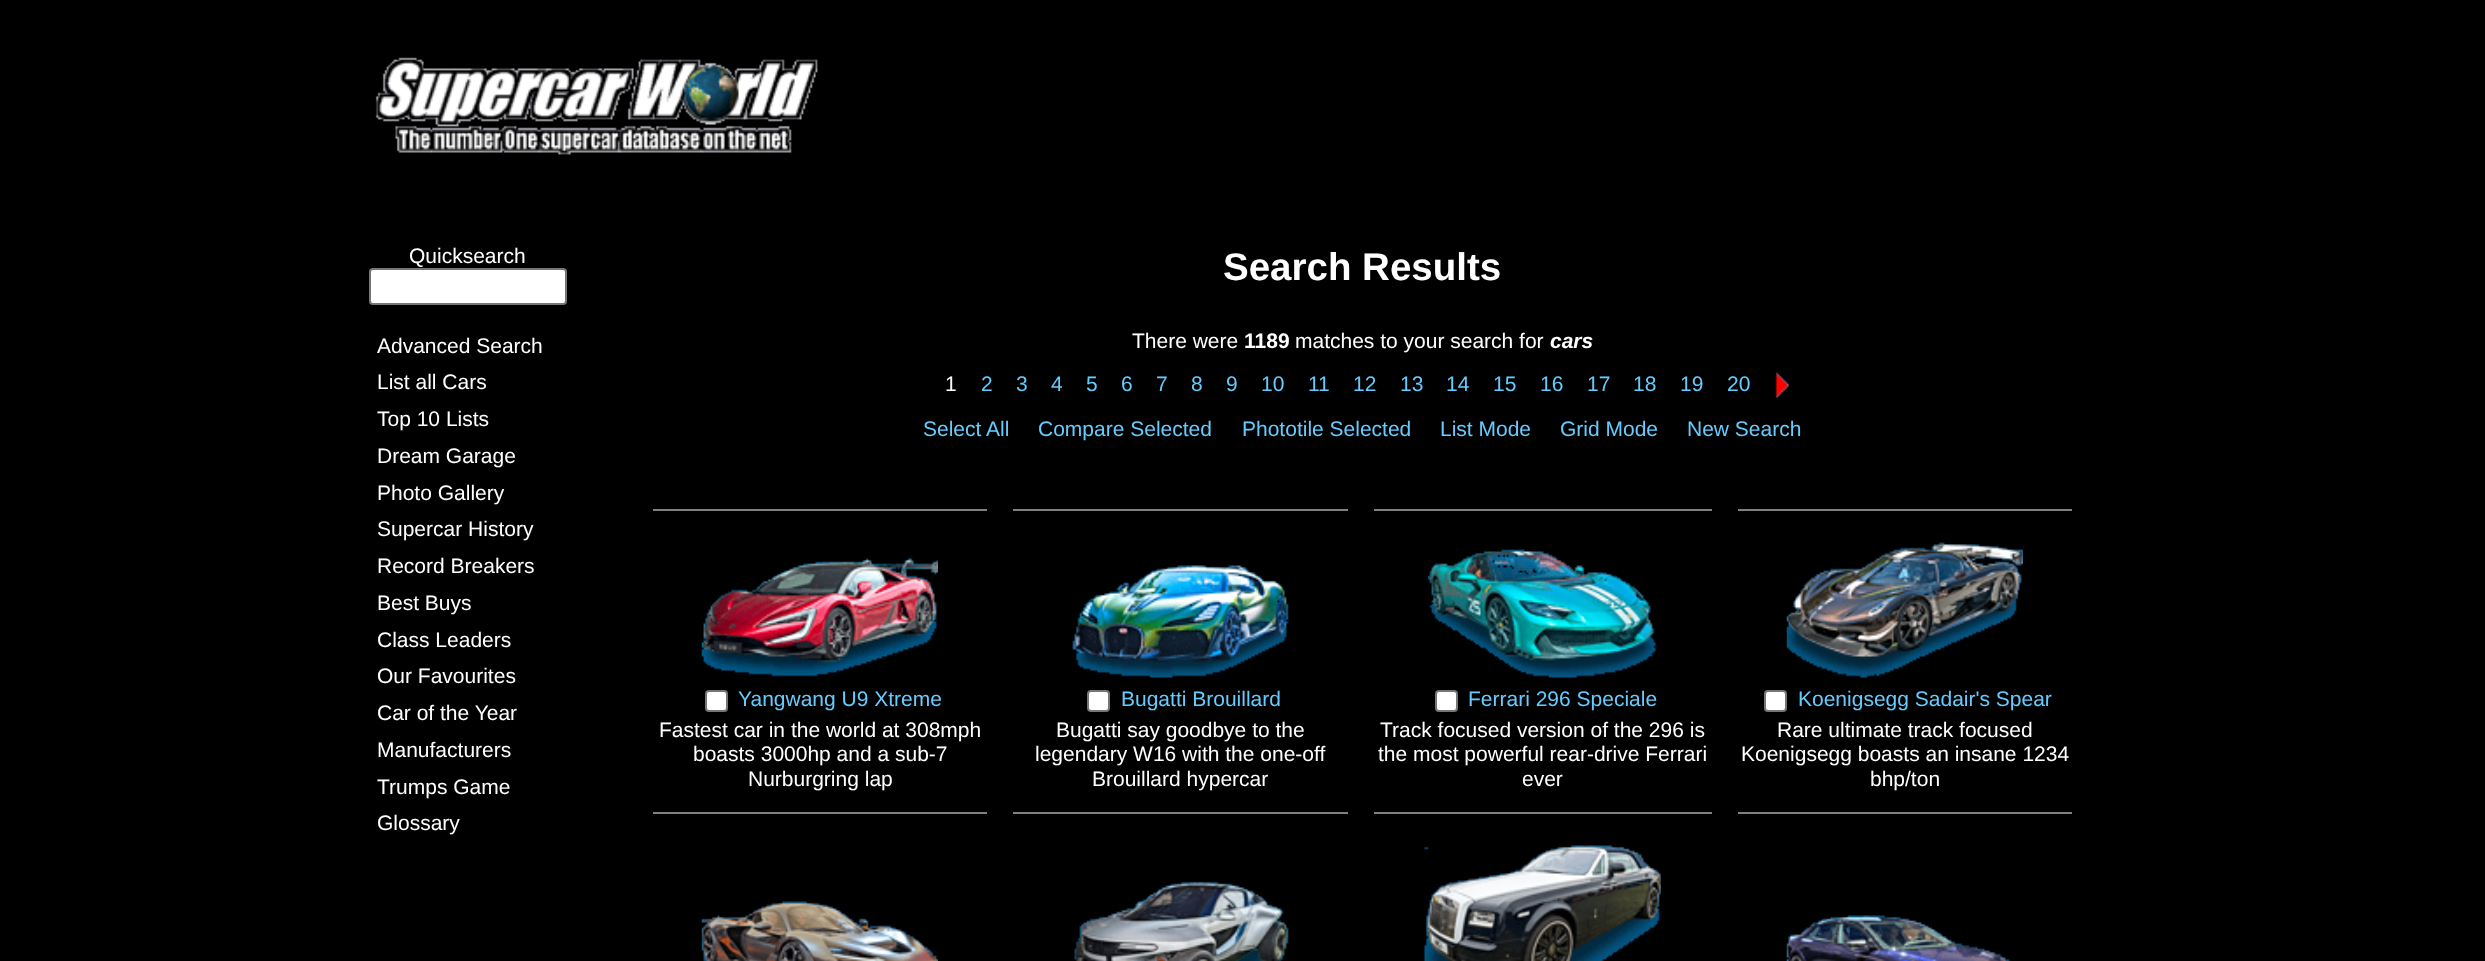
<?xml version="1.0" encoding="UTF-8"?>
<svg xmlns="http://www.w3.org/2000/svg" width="2485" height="961">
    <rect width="100%" height="100%" fill="#000000"/>
    <image x="375" y="57" width="443" height="98" href="img_01.png"/>
    <text x="409" y="263" font-family="Liberation Sans" font-size="21" fill="#FFFFFF">Quicksearch</text>
    <rect x="370" y="269" width="196" height="35" rx="3" fill="#FFFFFF" stroke="#767676" stroke-width="2"/>
    <text font-family="Liberation Sans" font-size="21" fill="#FFFFFF">
        <tspan x="377" y="353">Advanced Search</tspan>
        <tspan x="377" y="389">List all Cars</tspan>
        <tspan x="377" y="426">Top 10 Lists</tspan>
        <tspan x="377" y="463">Dream Garage</tspan>
        <tspan x="377" y="500">Photo Gallery</tspan>
        <tspan x="377" y="536">Supercar History</tspan>
        <tspan x="377" y="573">Record Breakers</tspan>
        <tspan x="377" y="610">Best Buys</tspan>
        <tspan x="377" y="647">Class Leaders</tspan>
        <tspan x="377" y="683">Our Favourites</tspan>
        <tspan x="377" y="720">Car of the Year</tspan>
        <tspan x="377" y="757">Manufacturers</tspan>
        <tspan x="377" y="794">Trumps Game</tspan>
        <tspan x="377" y="830">Glossary</tspan>
    </text>
    <text x="1223" y="280" font-family="Liberation Sans" font-size="38.5" font-weight="700" fill="#FFFFFF">Search Results</text>
    <text x="1132" y="348" font-family="Liberation Sans" font-size="21" fill="#FFFFFF">There were</text>
    <text x="1244" y="348" font-family="Liberation Sans" font-size="21" font-weight="700" fill="#FFFFFF">1189</text>
    <text x="1295" y="348" font-family="Liberation Sans" font-size="21" fill="#FFFFFF">matches to your search for</text>
    <text x="1550" y="348" font-family="Liberation Sans" font-size="21" font-weight="700" font-style="italic" fill="#FFFFFF">cars</text>
    <text x="945" y="391" font-family="Liberation Sans" font-size="21" fill="#FFFFFF">1</text>
    <text x="981" y="391" font-family="Liberation Sans" font-size="21" fill="#66CCFF">2</text>
    <text x="1016" y="391" font-family="Liberation Sans" font-size="21" fill="#66CCFF">3</text>
    <text x="1051" y="391" font-family="Liberation Sans" font-size="21" fill="#66CCFF">4</text>
    <text x="1086" y="391" font-family="Liberation Sans" font-size="21" fill="#66CCFF">5</text>
    <text x="1121" y="391" font-family="Liberation Sans" font-size="21" fill="#66CCFF">6</text>
    <text x="1156" y="391" font-family="Liberation Sans" font-size="21" fill="#66CCFF">7</text>
    <text x="1191" y="391" font-family="Liberation Sans" font-size="21" fill="#66CCFF">8</text>
    <text x="1226" y="391" font-family="Liberation Sans" font-size="21" fill="#66CCFF">9</text>
    <text x="1261" y="391" font-family="Liberation Sans" font-size="21" fill="#66CCFF">10</text>
    <text x="1308" y="391" font-family="Liberation Sans" font-size="21" fill="#66CCFF">11</text>
    <text x="1353" y="391" font-family="Liberation Sans" font-size="21" fill="#66CCFF">12</text>
    <text x="1400" y="391" font-family="Liberation Sans" font-size="21" fill="#66CCFF">13</text>
    <text x="1446" y="391" font-family="Liberation Sans" font-size="21" fill="#66CCFF">14</text>
    <text x="1493" y="391" font-family="Liberation Sans" font-size="21" fill="#66CCFF">15</text>
    <text x="1540" y="391" font-family="Liberation Sans" font-size="21" fill="#66CCFF">16</text>
    <text x="1587" y="391" font-family="Liberation Sans" font-size="21" fill="#66CCFF">17</text>
    <text x="1633" y="391" font-family="Liberation Sans" font-size="21" fill="#66CCFF">18</text>
    <text x="1680" y="391" font-family="Liberation Sans" font-size="21" fill="#66CCFF">19</text>
    <text x="1727" y="391" font-family="Liberation Sans" font-size="21" fill="#66CCFF">20</text>
    <image x="1775" y="372" width="14" height="26" href="img_02.png"/>
    <text x="923" y="436" font-family="Liberation Sans" font-size="21" fill="#66CCFF">Select All</text>
    <text x="1038" y="436" font-family="Liberation Sans" font-size="21" fill="#66CCFF">Compare Selected</text>
    <text x="1242" y="436" font-family="Liberation Sans" font-size="21" fill="#66CCFF">Phototile Selected</text>
    <text x="1440" y="436" font-family="Liberation Sans" font-size="21" fill="#66CCFF">List Mode</text>
    <text x="1560" y="436" font-family="Liberation Sans" font-size="21" fill="#66CCFF">Grid Mode</text>
    <text x="1687" y="436" font-family="Liberation Sans" font-size="21" fill="#66CCFF">New Search</text>
    <rect x="653" y="509" width="334" height="2" fill="#808080"/>
    <rect x="1013" y="509" width="335" height="2" fill="#808080"/>
    <rect x="1374" y="509" width="338" height="2" fill="#808080"/>
    <rect x="1738" y="509" width="334" height="2" fill="#808080"/>
    <image x="701" y="558" width="237" height="119" href="img_03.png"/>
    <rect x="706" y="691" width="21" height="20" rx="3" fill="#FFFFFF" stroke="#767676" stroke-width="2"/>
    <text x="738" y="706" font-family="Liberation Sans" font-size="21" fill="#66CCFF">Yangwang U9 Xtreme</text>
    <text x="659" y="737" font-family="Liberation Sans" font-size="21" fill="#FFFFFF">Fastest car in the world at 308mph</text>
    <text x="693" y="761" font-family="Liberation Sans" font-size="21" fill="#FFFFFF">boasts 3000hp and a sub-7</text>
    <text x="748" y="786" font-family="Liberation Sans" font-size="21" fill="#FFFFFF">Nurburgring lap</text>
    <image x="1072" y="565" width="217" height="113" href="img_04.png"/>
    <rect x="1088" y="691" width="21" height="20" rx="3" fill="#FFFFFF" stroke="#767676" stroke-width="2"/>
    <text x="1121" y="706" font-family="Liberation Sans" font-size="21" fill="#66CCFF">Bugatti Brouillard</text>
    <text x="1056" y="737" font-family="Liberation Sans" font-size="21" fill="#FFFFFF">Bugatti say goodbye to the</text>
    <text x="1035" y="761" font-family="Liberation Sans" font-size="21" fill="#FFFFFF">legendary W16 with the one-off</text>
    <text x="1092" y="786" font-family="Liberation Sans" font-size="21" fill="#FFFFFF">Brouillard hypercar</text>
    <image x="1428" y="549" width="228" height="129" href="img_05.png"/>
    <rect x="1436" y="691" width="21" height="20" rx="3" fill="#FFFFFF" stroke="#767676" stroke-width="2"/>
    <text x="1468" y="706" font-family="Liberation Sans" font-size="21" fill="#66CCFF">Ferrari 296 Speciale</text>
    <text x="1380" y="737" font-family="Liberation Sans" font-size="21" fill="#FFFFFF">Track focused version of the 296 is</text>
    <text x="1378" y="761" font-family="Liberation Sans" font-size="21" fill="#FFFFFF">the most powerful rear-drive Ferrari</text>
    <text x="1522" y="786" font-family="Liberation Sans" font-size="21" fill="#FFFFFF">ever</text>
    <image x="1786" y="542" width="237" height="136" href="img_06.png"/>
    <rect x="1765" y="691" width="21" height="20" rx="3" fill="#FFFFFF" stroke="#767676" stroke-width="2"/>
    <text x="1798" y="706" font-family="Liberation Sans" font-size="21" fill="#66CCFF">Koenigsegg Sadair's Spear</text>
    <text x="1777" y="737" font-family="Liberation Sans" font-size="21" fill="#FFFFFF">Rare ultimate track focused</text>
    <text x="1741" y="761" font-family="Liberation Sans" font-size="21" fill="#FFFFFF">Koenigsegg boasts an insane 1234</text>
    <text x="1870" y="786" font-family="Liberation Sans" font-size="21" fill="#FFFFFF">bhp/ton</text>
    <rect x="653" y="812" width="334" height="2" fill="#808080"/>
    <rect x="1013" y="812" width="335" height="2" fill="#808080"/>
    <rect x="1374" y="812" width="338" height="2" fill="#808080"/>
    <rect x="1738" y="812" width="334" height="2" fill="#808080"/>
    <image x="701" y="901" width="237" height="60" href="img_07.png"/>
    <image x="1074" y="881" width="215" height="80" href="img_08.png"/>
    <image x="1424" y="845" width="237" height="116" href="img_09.png"/>
    <image x="1786" y="915" width="225" height="46" href="img_10.png"/>
</svg>
